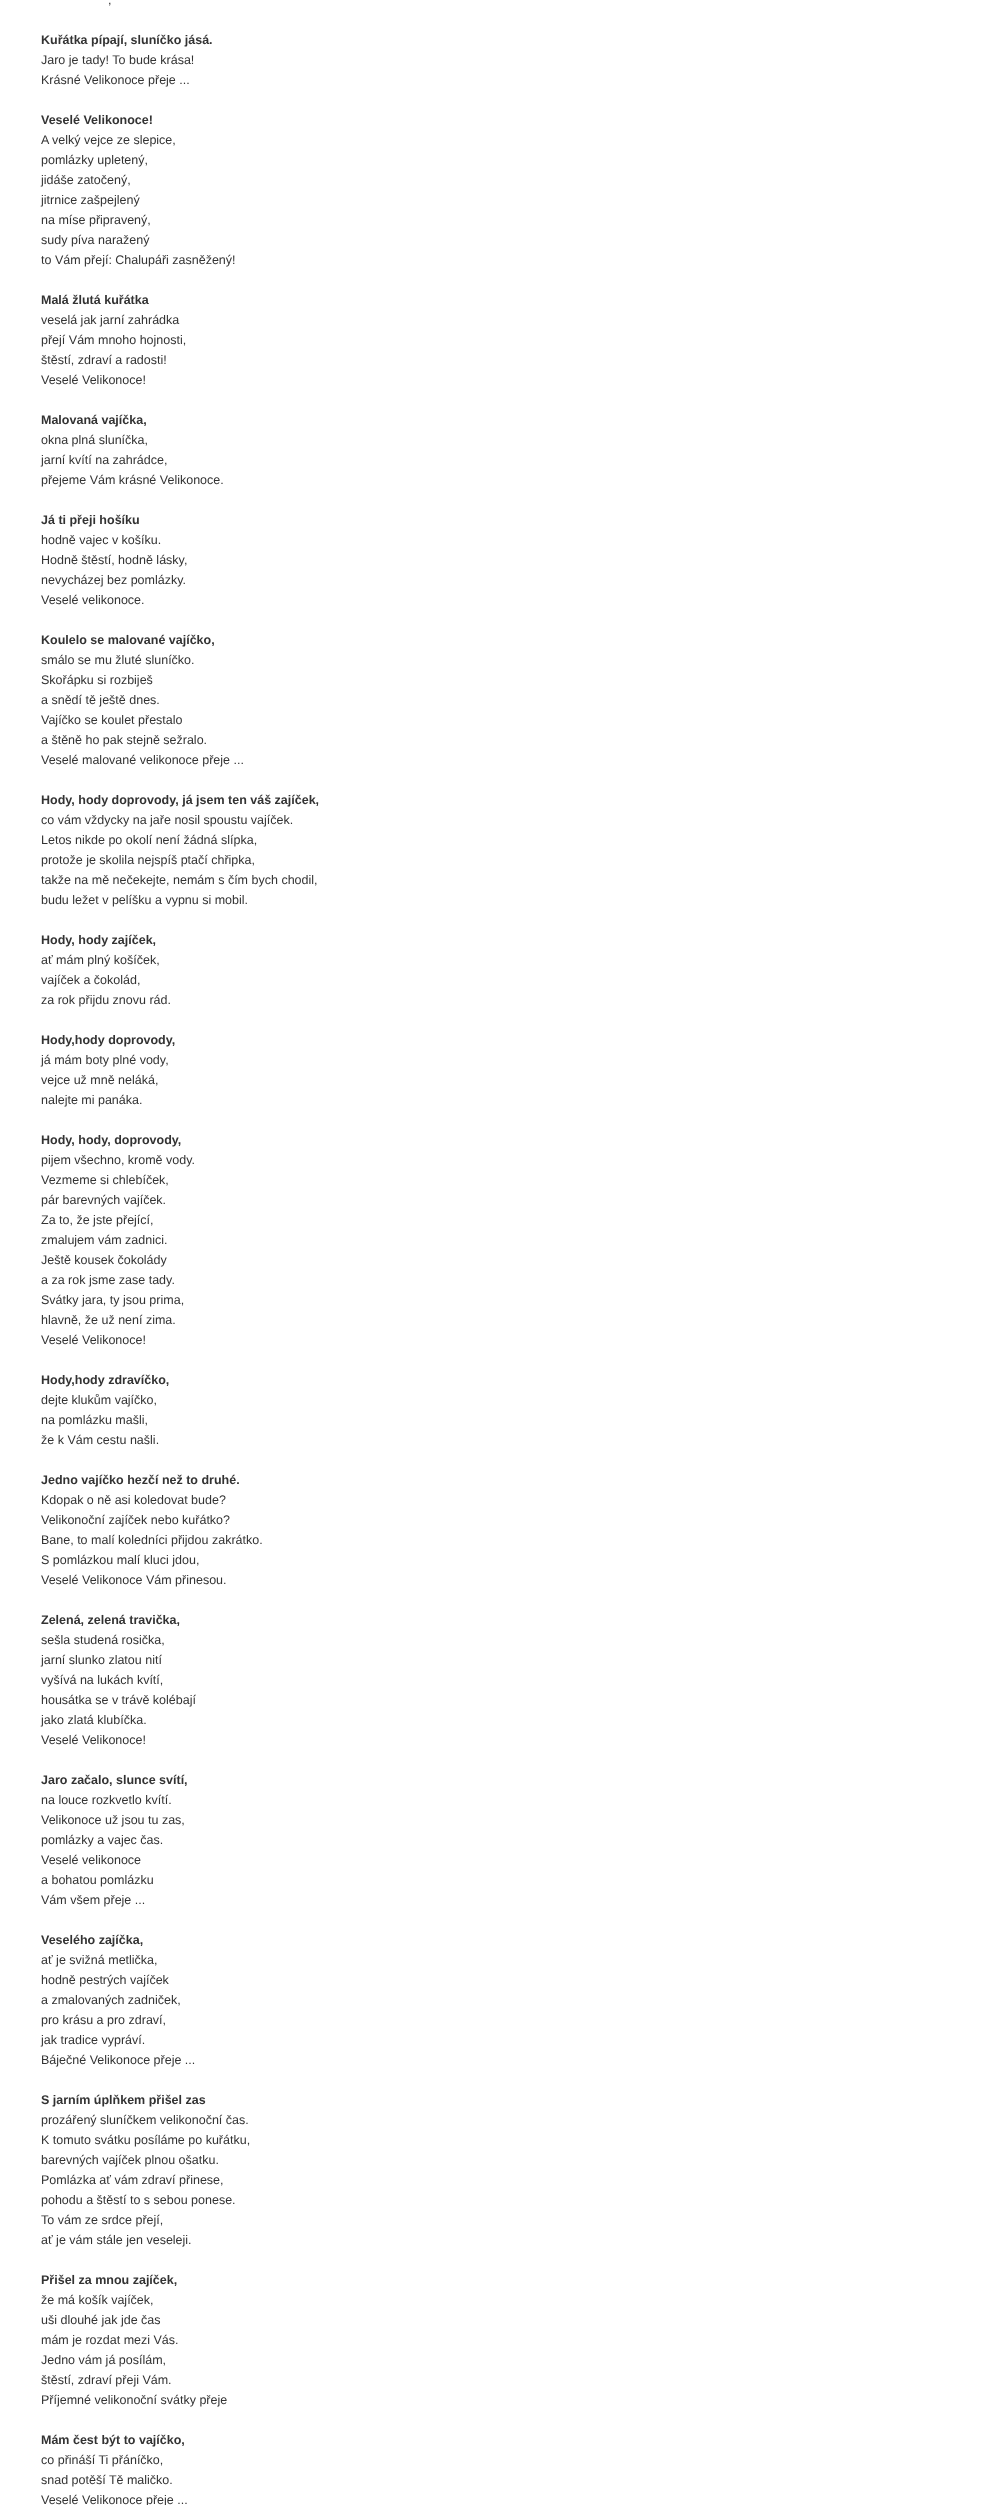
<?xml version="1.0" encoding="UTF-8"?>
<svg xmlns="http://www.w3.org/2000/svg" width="1002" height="2505">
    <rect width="100%" height="100%" fill="#FFFFFF"/>
    <text x="108" y="4" font-family="Liberation Sans" font-size="12.5" fill="#333333">,</text>
    <text x="41" y="44" font-family="Liberation Sans" font-size="12.5" font-weight="700" fill="#333333">Kuřátka pípají, sluníčko jásá.</text>
    <text font-family="Liberation Sans" font-size="12.5" fill="#333333">
        <tspan x="41" y="64">Jaro je tady! To bude krása!</tspan>
        <tspan x="41" y="84">Krásné Velikonoce přeje ...</tspan>
    </text>
    <text x="41" y="124" font-family="Liberation Sans" font-size="12.5" font-weight="700" fill="#333333">Veselé Velikonoce!</text>
    <text font-family="Liberation Sans" font-size="12.5" fill="#333333">
        <tspan x="41" y="144">A velký vejce ze slepice,</tspan>
        <tspan x="41" y="164">pomlázky upletený,</tspan>
        <tspan x="41" y="184">jidáše zatočený,</tspan>
        <tspan x="41" y="204">jitrnice zašpejlený</tspan>
        <tspan x="41" y="224">na míse připravený,</tspan>
        <tspan x="41" y="244">sudy píva naražený</tspan>
        <tspan x="41" y="264">to Vám přejí: Chalupáři zasněžený!</tspan>
    </text>
    <text x="41" y="304" font-family="Liberation Sans" font-size="12.5" font-weight="700" fill="#333333">Malá žlutá kuřátka</text>
    <text font-family="Liberation Sans" font-size="12.5" fill="#333333">
        <tspan x="41" y="324">veselá jak jarní zahrádka</tspan>
        <tspan x="41" y="344">přejí Vám mnoho hojnosti,</tspan>
        <tspan x="41" y="364">štěstí, zdraví a radosti!</tspan>
        <tspan x="41" y="384">Veselé Velikonoce!</tspan>
    </text>
    <text x="41" y="424" font-family="Liberation Sans" font-size="12.5" font-weight="700" fill="#333333">Malovaná vajíčka,</text>
    <text font-family="Liberation Sans" font-size="12.5" fill="#333333">
        <tspan x="41" y="444">okna plná sluníčka,</tspan>
        <tspan x="41" y="464">jarní kvítí na zahrádce,</tspan>
        <tspan x="41" y="484">přejeme Vám krásné Velikonoce.</tspan>
    </text>
    <text x="41" y="524" font-family="Liberation Sans" font-size="12.5" font-weight="700" fill="#333333">Já ti přeji hošíku</text>
    <text font-family="Liberation Sans" font-size="12.5" fill="#333333">
        <tspan x="41" y="544">hodně vajec v košíku.</tspan>
        <tspan x="41" y="564">Hodně štěstí, hodně lásky,</tspan>
        <tspan x="41" y="584">nevycházej bez pomlázky.</tspan>
        <tspan x="41" y="604">Veselé velikonoce.</tspan>
    </text>
    <text x="41" y="644" font-family="Liberation Sans" font-size="12.5" font-weight="700" fill="#333333">Koulelo se malované vajíčko,</text>
    <text font-family="Liberation Sans" font-size="12.5" fill="#333333">
        <tspan x="41" y="664">smálo se mu žluté sluníčko.</tspan>
        <tspan x="41" y="684">Skořápku si rozbiješ</tspan>
        <tspan x="41" y="704">a snědí tě ještě dnes.</tspan>
        <tspan x="41" y="724">Vajíčko se koulet přestalo</tspan>
        <tspan x="41" y="744">a štěně ho pak stejně sežralo.</tspan>
        <tspan x="41" y="764">Veselé malované velikonoce přeje ...</tspan>
    </text>
    <text x="41" y="804" font-family="Liberation Sans" font-size="12.5" font-weight="700" fill="#333333">Hody, hody doprovody, já jsem ten váš zajíček,</text>
    <text font-family="Liberation Sans" font-size="12.5" fill="#333333">
        <tspan x="41" y="824">co vám vždycky na jaře nosil spoustu vajíček.</tspan>
        <tspan x="41" y="844">Letos nikde po okolí není žádná slípka,</tspan>
        <tspan x="41" y="864">protože je skolila nejspíš ptačí chřipka,</tspan>
        <tspan x="41" y="884">takže na mě nečekejte, nemám s čím bych chodil,</tspan>
        <tspan x="41" y="904">budu ležet v pelíšku a vypnu si mobil.</tspan>
    </text>
    <text x="41" y="944" font-family="Liberation Sans" font-size="12.5" font-weight="700" fill="#333333">Hody, hody zajíček,</text>
    <text font-family="Liberation Sans" font-size="12.5" fill="#333333">
        <tspan x="41" y="964">ať mám plný košíček,</tspan>
        <tspan x="41" y="984">vajíček a čokolád,</tspan>
        <tspan x="41" y="1004">za rok přijdu znovu rád.</tspan>
    </text>
    <text x="41" y="1044" font-family="Liberation Sans" font-size="12.5" font-weight="700" fill="#333333">Hody,hody doprovody,</text>
    <text font-family="Liberation Sans" font-size="12.5" fill="#333333">
        <tspan x="41" y="1064">já mám boty plné vody,</tspan>
        <tspan x="41" y="1084">vejce už mně neláká,</tspan>
        <tspan x="41" y="1104">nalejte mi panáka.</tspan>
    </text>
    <text x="41" y="1144" font-family="Liberation Sans" font-size="12.5" font-weight="700" fill="#333333">Hody, hody, doprovody,</text>
    <text font-family="Liberation Sans" font-size="12.5" fill="#333333">
        <tspan x="41" y="1164">pijem všechno, kromě vody.</tspan>
        <tspan x="41" y="1184">Vezmeme si chlebíček,</tspan>
        <tspan x="41" y="1204">pár barevných vajíček.</tspan>
        <tspan x="41" y="1224">Za to, že jste přející,</tspan>
        <tspan x="41" y="1244">zmalujem vám zadnici.</tspan>
        <tspan x="41" y="1264">Ještě kousek čokolády</tspan>
        <tspan x="41" y="1284">a za rok jsme zase tady.</tspan>
        <tspan x="41" y="1304">Svátky jara, ty jsou prima,</tspan>
        <tspan x="41" y="1324">hlavně, že už není zima.</tspan>
        <tspan x="41" y="1344">Veselé Velikonoce!</tspan>
    </text>
    <text x="41" y="1384" font-family="Liberation Sans" font-size="12.5" font-weight="700" fill="#333333">Hody,hody zdravíčko,</text>
    <text font-family="Liberation Sans" font-size="12.5" fill="#333333">
        <tspan x="41" y="1404">dejte klukům vajíčko,</tspan>
        <tspan x="41" y="1424">na pomlázku mašli,</tspan>
        <tspan x="41" y="1444">že k Vám cestu našli.</tspan>
    </text>
    <text x="41" y="1484" font-family="Liberation Sans" font-size="12.5" font-weight="700" fill="#333333">Jedno vajíčko hezčí než to druhé.</text>
    <text font-family="Liberation Sans" font-size="12.5" fill="#333333">
        <tspan x="41" y="1504">Kdopak o ně asi koledovat bude?</tspan>
        <tspan x="41" y="1524">Velikonoční zajíček nebo kuřátko?</tspan>
        <tspan x="41" y="1544">Bane, to malí koledníci přijdou zakrátko.</tspan>
        <tspan x="41" y="1564">S pomlázkou malí kluci jdou,</tspan>
        <tspan x="41" y="1584">Veselé Velikonoce Vám přinesou.</tspan>
    </text>
    <text x="41" y="1624" font-family="Liberation Sans" font-size="12.5" font-weight="700" fill="#333333">Zelená, zelená travička,</text>
    <text font-family="Liberation Sans" font-size="12.5" fill="#333333">
        <tspan x="41" y="1644">sešla studená rosička,</tspan>
        <tspan x="41" y="1664">jarní slunko zlatou nití</tspan>
        <tspan x="41" y="1684">vyšívá na lukách kvítí,</tspan>
        <tspan x="41" y="1704">housátka se v trávě kolébají</tspan>
        <tspan x="41" y="1724">jako zlatá klubíčka.</tspan>
        <tspan x="41" y="1744">Veselé Velikonoce!</tspan>
    </text>
    <text x="41" y="1784" font-family="Liberation Sans" font-size="12.5" font-weight="700" fill="#333333">Jaro začalo, slunce svítí,</text>
    <text font-family="Liberation Sans" font-size="12.5" fill="#333333">
        <tspan x="41" y="1804">na louce rozkvetlo kvítí.</tspan>
        <tspan x="41" y="1824">Velikonoce už jsou tu zas,</tspan>
        <tspan x="41" y="1844">pomlázky a vajec čas.</tspan>
        <tspan x="41" y="1864">Veselé velikonoce</tspan>
        <tspan x="41" y="1884">a bohatou pomlázku</tspan>
        <tspan x="41" y="1904">Vám všem přeje ...</tspan>
    </text>
    <text x="41" y="1944" font-family="Liberation Sans" font-size="12.5" font-weight="700" fill="#333333">Veselého zajíčka,</text>
    <text font-family="Liberation Sans" font-size="12.5" fill="#333333">
        <tspan x="41" y="1964">ať je svižná metlička,</tspan>
        <tspan x="41" y="1984">hodně pestrých vajíček</tspan>
        <tspan x="41" y="2004">a zmalovaných zadniček,</tspan>
        <tspan x="41" y="2024">pro krásu a pro zdraví,</tspan>
        <tspan x="41" y="2044">jak tradice vypráví.</tspan>
        <tspan x="41" y="2064">Báječné Velikonoce přeje ...</tspan>
    </text>
    <text x="41" y="2104" font-family="Liberation Sans" font-size="12.5" font-weight="700" fill="#333333">S jarním úplňkem přišel zas</text>
    <text font-family="Liberation Sans" font-size="12.5" fill="#333333">
        <tspan x="41" y="2124">prozářený sluníčkem velikonoční čas.</tspan>
        <tspan x="41" y="2144">K tomuto svátku posíláme po kuřátku,</tspan>
        <tspan x="41" y="2164">barevných vajíček plnou ošatku.</tspan>
        <tspan x="41" y="2184">Pomlázka ať vám zdraví přinese,</tspan>
        <tspan x="41" y="2204">pohodu a štěstí to s sebou ponese.</tspan>
        <tspan x="41" y="2224">To vám ze srdce přejí,</tspan>
        <tspan x="41" y="2244">ať je vám stále jen veseleji.</tspan>
    </text>
    <text x="41" y="2284" font-family="Liberation Sans" font-size="12.5" font-weight="700" fill="#333333">Přišel za mnou zajíček,</text>
    <text font-family="Liberation Sans" font-size="12.5" fill="#333333">
        <tspan x="41" y="2304">že má košík vajíček,</tspan>
        <tspan x="41" y="2324">uši dlouhé jak jde čas</tspan>
        <tspan x="41" y="2344">mám je rozdat mezi Vás.</tspan>
        <tspan x="41" y="2364">Jedno vám já posílám,</tspan>
        <tspan x="41" y="2384">štěstí, zdraví přeji Vám.</tspan>
        <tspan x="41" y="2404">Příjemné velikonoční svátky přeje</tspan>
    </text>
    <text x="41" y="2444" font-family="Liberation Sans" font-size="12.5" font-weight="700" fill="#333333">Mám čest být to vajíčko,</text>
    <text font-family="Liberation Sans" font-size="12.5" fill="#333333">
        <tspan x="41" y="2464">co přináší Ti přáníčko,</tspan>
        <tspan x="41" y="2484">snad potěší Tě maličko.</tspan>
        <tspan x="41" y="2504">Veselé Velikonoce přeje ...</tspan>
    </text>
</svg>
